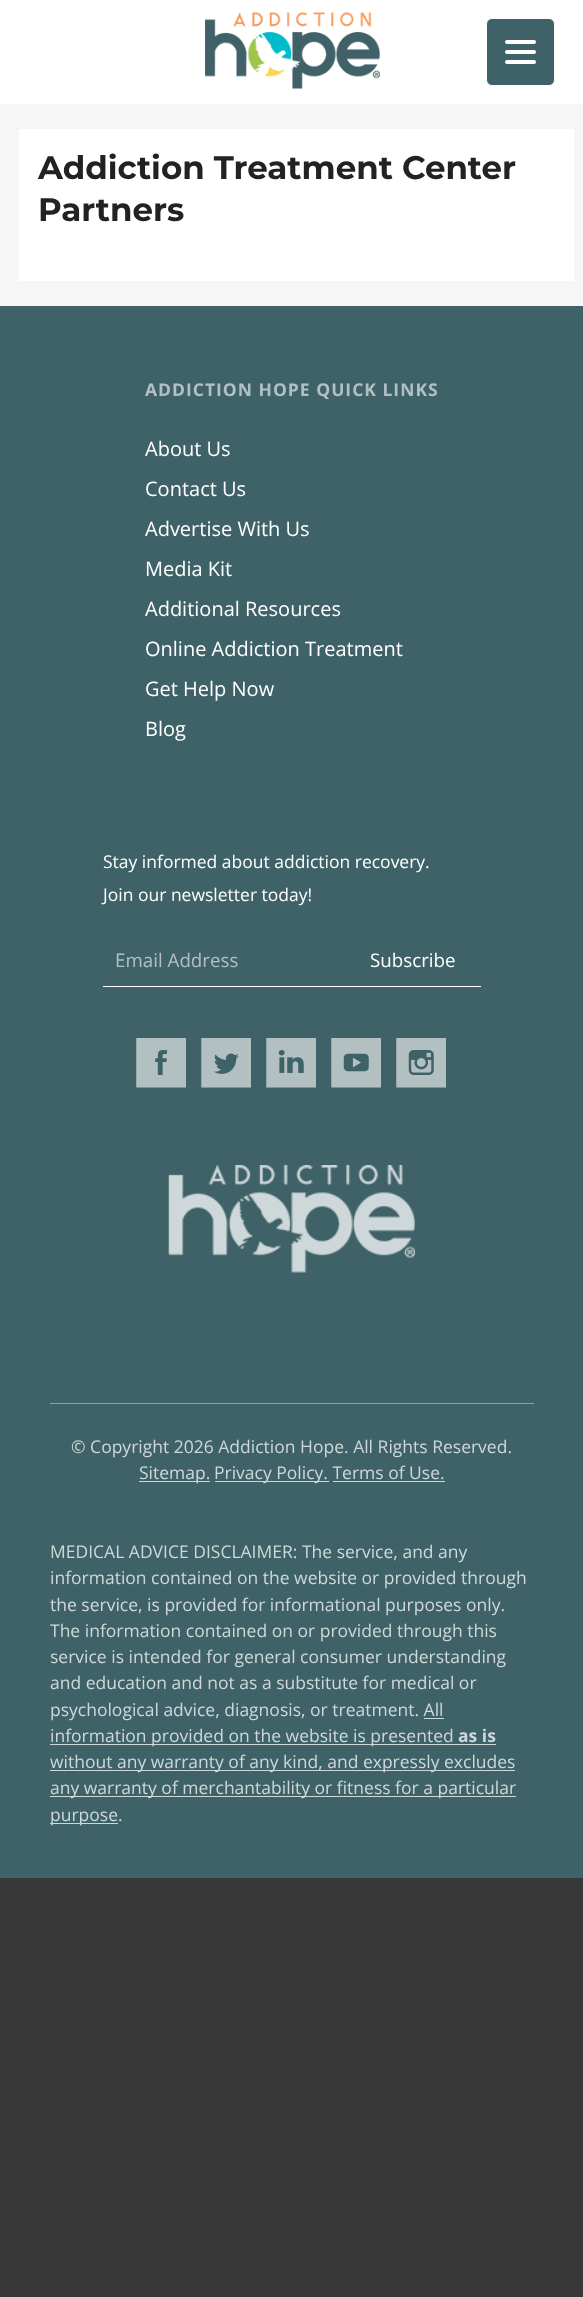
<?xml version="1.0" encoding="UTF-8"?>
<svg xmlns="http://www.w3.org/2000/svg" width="583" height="2297">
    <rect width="100%" height="100%" fill="#383838"/>
    <rect x="0" y="0" width="583" height="104" fill="#FFFFFF"/>
    <image x="205" y="12" width="175" height="77" href="img_01.png"/>
    <rect x="486.5" y="18.5" width="68" height="67" rx="5.5" fill="#3F6268" stroke="#FFFFFF"/>
    <rect x="505" y="50" width="31" height="4" rx="2" fill="#FFFFFF"/>
    <rect x="505" y="40" width="31" height="4" rx="2" fill="#FFFFFF"/>
    <rect x="505" y="60" width="31" height="4" rx="2" fill="#FFFFFF"/>
    <rect x="0" y="104" width="583" height="202" fill="#F6F6F6"/>
    <rect x="19" y="129" width="555" height="152" fill="#FFFFFF"/>
    <text font-family="Montserrat" font-size="32.5" font-weight="700" fill="#222222">
        <tspan x="38" y="179">Addiction Treatment Center</tspan>
        <tspan x="38" y="221">Partners</tspan>
    </text>
    <rect x="0" y="306" width="583" height="1572" fill="#3F6268"/>
    <text x="145" y="396" font-family="Open Sans" font-size="17.5" font-weight="700" letter-spacing="1" fill="#B2C0C3">ADDICTION HOPE QUICK LINKS</text>
    <text x="145" y="456" font-family="Open Sans" font-size="20" fill="#FFFFFF">About Us</text>
    <text x="145" y="496" font-family="Open Sans" font-size="20" fill="#FFFFFF">Contact Us</text>
    <text x="145" y="536" font-family="Open Sans" font-size="20" fill="#FFFFFF">Advertise With Us</text>
    <text x="145" y="576" font-family="Open Sans" font-size="20" fill="#FFFFFF">Media Kit</text>
    <text x="145" y="616" font-family="Open Sans" font-size="20" fill="#FFFFFF">Additional Resources</text>
    <text x="145" y="656" font-family="Open Sans" font-size="20" fill="#FFFFFF">Online Addiction Treatment</text>
    <text x="145" y="696" font-family="Open Sans" font-size="20" fill="#FFFFFF">Get Help Now</text>
    <text x="145" y="736" font-family="Open Sans" font-size="20" fill="#FFFFFF">Blog</text>
    <text font-family="Open Sans" font-size="17.5" fill="#FFFFFF">
        <tspan x="103" y="868">Stay informed about addiction recovery.</tspan>
        <tspan x="103" y="901">Join our newsletter today!</tspan>
    </text>
    <rect x="103" y="986" width="378" height="1" fill="#FFFFFF"/>
    <text x="115" y="967" font-family="Open Sans" font-size="18.75" fill="#B2C0C3">Email Address</text>
    <text x="370" y="967" font-family="Open Sans" font-size="18.75" fill="#FFFFFF">Subscribe</text>
    <image x="136" y="1038" width="50" height="50" href="img_02.png"/>
    <image x="201" y="1038" width="50" height="50" href="img_03.png"/>
    <image x="266" y="1038" width="50" height="50" href="img_04.png"/>
    <image x="331" y="1038" width="50" height="50" href="img_05.png"/>
    <image x="396" y="1038" width="50" height="50" href="img_06.png"/>
    <image x="168" y="1165" width="247" height="108" href="img_07.png"/>
    <rect x="50" y="1403" width="484" height="1" fill="#94A2A4"/>
    <text x="71" y="1453" font-family="Open Sans" font-size="17.5" fill="#CFD8D9">© Copyright 2026 Addiction Hope. All Rights Reserved.</text>
    <rect x="139" y="1481" width="71" height="1" fill="#CFD8D9"/>
    <text x="139" y="1479" font-family="Open Sans" font-size="17.5" fill="#CFD8D9">Sitemap.</text>
    <rect x="215" y="1481" width="114" height="1" fill="#CFD8D9"/>
    <text x="214" y="1479" font-family="Open Sans" font-size="17.5" fill="#CFD8D9">Privacy Policy. Terms of Use.</text>
    <rect x="333" y="1481" width="112" height="1" fill="#CFD8D9"/>
    <text font-family="Open Sans" font-size="17.5" fill="#CFD8D9">
        <tspan x="50" y="1558">MEDICAL ADVICE DISCLAIMER: The service, and any</tspan>
        <tspan x="50" y="1584">information contained on the website or provided through</tspan>
        <tspan x="50" y="1611">the service, is provided for informational purposes only.</tspan>
        <tspan x="50" y="1637">The information contained on or provided through this</tspan>
        <tspan x="50" y="1663">service is intended for general consumer understanding</tspan>
        <tspan x="50" y="1689">and education and not as a substitute for medical or</tspan>
        <tspan x="50" y="1716">psychological advice, diagnosis, or treatment. All</tspan>
    </text>
    <rect x="50" y="1744" width="446" height="1" fill="#CFD8D9"/>
    <text x="50" y="1742" font-family="Open Sans" font-size="17.5" fill="#CFD8D9">information provided on the website is presented</text>
    <rect x="424" y="1718" width="20" height="1" fill="#CFD8D9"/>
    <text x="458" y="1742" font-family="Open Sans" font-size="17.5" font-weight="700" fill="#CFD8D9">as is</text>
    <rect x="50" y="1770" width="465" height="1" fill="#CFD8D9"/>
    <text x="50" y="1768" font-family="Open Sans" font-size="17.5" fill="#CFD8D9">without any warranty of any kind, and expressly excludes</text>
    <rect x="50" y="1796" width="466" height="1" fill="#CFD8D9"/>
    <text x="50" y="1794" font-family="Open Sans" font-size="17.5" fill="#CFD8D9">any warranty of merchantability or fitness for a particular</text>
    <rect x="50" y="1823" width="68" height="1" fill="#CFD8D9"/>
    <text x="50" y="1821" font-family="Open Sans" font-size="17.5" fill="#CFD8D9">purpose.</text>
</svg>
